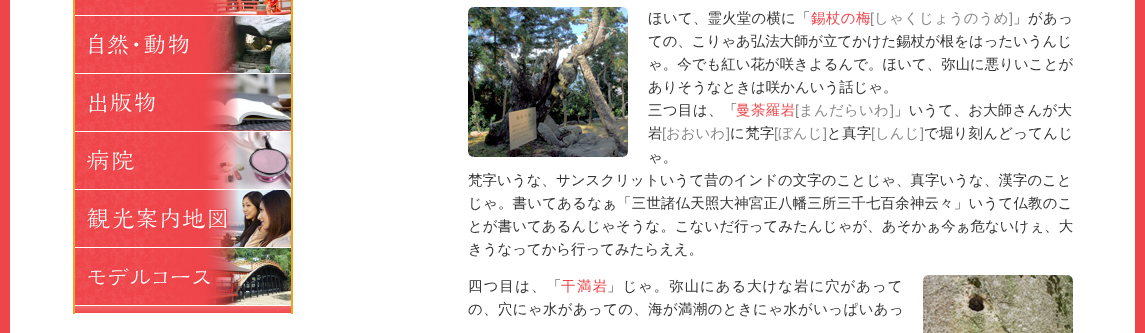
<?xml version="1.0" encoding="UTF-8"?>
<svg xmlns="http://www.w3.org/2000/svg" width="1145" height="333">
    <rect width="100%" height="100%" fill="#FFFFFF"/>
    <rect x="1135" y="0" width="10" height="333" fill="#EF454A"/>
    <rect x="0" y="0" width="10" height="333" fill="#EF454A"/>
    <rect x="73" y="0" width="220" height="314" fill="#EBA51E"/>
    <image x="75" y="305" width="216" height="9" href="img_01.png"/>
    <rect x="75" y="15" width="216" height="1" fill="#FFFFFF"/>
    <image x="75" y="0" width="216" height="15" href="img_02.png"/>
    <rect x="75" y="73" width="216" height="1" fill="#FFFFFF"/>
    <image x="75" y="16" width="216" height="57" href="img_03.png"/>
    <rect x="75" y="131" width="216" height="1" fill="#FFFFFF"/>
    <image x="75" y="74" width="216" height="57" href="img_04.png"/>
    <rect x="75" y="189" width="216" height="1" fill="#FFFFFF"/>
    <image x="75" y="132" width="216" height="57" href="img_05.png"/>
    <rect x="75" y="247" width="216" height="1" fill="#FFFFFF"/>
    <image x="75" y="190" width="216" height="57" href="img_06.png"/>
    <image x="75" y="248" width="216" height="57" href="img_07.png"/>
    <image x="468" y="7" width="160" height="150" href="img_08.png"/>
    <text x="648" y="23" font-family="WenQuanYi Zen Hei" font-size="14.4" font-weight="500" letter-spacing="0.25" fill="#333333">ほいて、霊火堂の横に「</text>
    <text x="811" y="23" font-family="WenQuanYi Zen Hei" font-size="14.4" font-weight="500" letter-spacing="0.5" fill="#EF454A">錫杖の梅</text>
    <text x="870" y="23" font-family="Liberation Sans" font-size="14.4" letter-spacing="0.25" fill="#888888">[</text>
    <text x="874" y="23" font-family="WenQuanYi Zen Hei" font-size="14.4" font-weight="500" letter-spacing="0.25" fill="#888888">しゃくじょうのうめ</text>
    <text x="1009" y="23" font-family="Liberation Sans" font-size="14.4" letter-spacing="0.25" fill="#888888">]</text>
    <text x="1013" y="23" font-family="WenQuanYi Zen Hei" font-size="14.4" font-weight="500" letter-spacing="0.5" fill="#333333">」があっ</text>
    <text x="648" y="46" font-family="WenQuanYi Zen Hei" font-size="14.4" font-weight="500" fill="#333333">ての、こりゃあ弘法大師が立てかけた錫杖が根をはったいうんじ</text>
    <text x="648" y="69" font-family="WenQuanYi Zen Hei" font-size="14.4" font-weight="500" letter-spacing="0.05" fill="#333333">ゃ。今でも紅い花が咲きよるんで。ほいて、弥山に悪りいことが</text>
    <text x="648" y="92" font-family="WenQuanYi Zen Hei" font-size="14.4" font-weight="500" fill="#333333">ありそうなときは咲かんいう話じゃ。</text>
    <text x="648" y="115" font-family="WenQuanYi Zen Hei" font-size="14.4" font-weight="500" letter-spacing="0.5" fill="#333333">三つ目は、「</text>
    <text x="736" y="115" font-family="WenQuanYi Zen Hei" font-size="14.4" font-weight="500" letter-spacing="0.5" fill="#EF454A">曼荼羅岩</text>
    <text x="795" y="115" font-family="Liberation Sans" font-size="14.4" letter-spacing="0.25" fill="#888888">[</text>
    <text x="799" y="115" font-family="WenQuanYi Zen Hei" font-size="14.4" font-weight="500" letter-spacing="0.25" fill="#888888">まんだらいわ</text>
    <text x="890" y="115" font-family="Liberation Sans" font-size="14.4" letter-spacing="0.25" fill="#888888">]</text>
    <text x="894" y="115" font-family="WenQuanYi Zen Hei" font-size="14.4" font-weight="500" letter-spacing="0.25" fill="#333333">」いうて、お大師さんが大</text>
    <text x="648" y="138" font-family="WenQuanYi Zen Hei" font-size="14.4" font-weight="500" fill="#333333">岩</text>
    <text x="662" y="138" font-family="Liberation Sans" font-size="14.4" fill="#888888">[</text>
    <text x="666" y="138" font-family="WenQuanYi Zen Hei" font-size="14.4" font-weight="500" fill="#888888">おおいわ</text>
    <text x="726" y="138" font-family="Liberation Sans" font-size="14.4" fill="#888888">]</text>
    <text x="730" y="138" font-family="WenQuanYi Zen Hei" font-size="14.4" font-weight="500" letter-spacing="0.5" fill="#333333">に梵字</text>
    <text x="774" y="138" font-family="Liberation Sans" font-size="14.4" fill="#888888">[</text>
    <text x="778" y="138" font-family="WenQuanYi Zen Hei" font-size="14.4" font-weight="500" fill="#888888">ぼんじ</text>
    <text x="823" y="138" font-family="Liberation Sans" font-size="14.4" fill="#888888">]</text>
    <text x="827" y="138" font-family="WenQuanYi Zen Hei" font-size="14.4" font-weight="500" letter-spacing="0.5" fill="#333333">と真字</text>
    <text x="871" y="138" font-family="Liberation Sans" font-size="14.4" fill="#888888">[</text>
    <text x="875" y="138" font-family="WenQuanYi Zen Hei" font-size="14.4" font-weight="500" fill="#888888">しんじ</text>
    <text x="920" y="138" font-family="Liberation Sans" font-size="14.4" fill="#888888">]</text>
    <text x="924" y="138" font-family="WenQuanYi Zen Hei" font-size="14.4" font-weight="500" letter-spacing="0.25" fill="#333333">で堀り刻んどってんじ</text>
    <text x="648" y="162" font-family="WenQuanYi Zen Hei" font-size="14.4" font-weight="500" fill="#333333">ゃ。</text>
    <text x="468" y="185" font-family="WenQuanYi Zen Hei" font-size="14.4" font-weight="500" letter-spacing="0.1" fill="#333333">梵字いうな、サンスクリットいうて昔のインドの文字のことじゃ、真字いうな、漢字のこと</text>
    <text x="468" y="208" font-family="WenQuanYi Zen Hei" font-size="14.4" font-weight="500" letter-spacing="0.25" fill="#333333">じゃ。書いてあるなぁ「三世諸仏天照大神宮正八幡三所三千七百余神云々」いうて仏教のこ</text>
    <text x="468" y="231" font-family="WenQuanYi Zen Hei" font-size="14.4" font-weight="500" letter-spacing="0.1" fill="#333333">とが書いてあるんじゃそうな。こないだ行ってみたんじゃが、あそかぁ今ぁ危ないけぇ、大</text>
    <text x="468" y="254" font-family="WenQuanYi Zen Hei" font-size="14.4" font-weight="500" fill="#333333">きうなってから行ってみたらええ。</text>
    <text x="468" y="291" font-family="WenQuanYi Zen Hei" font-size="14.4" font-weight="500" letter-spacing="1.25" fill="#333333">四つ目は、「</text>
    <text x="561" y="291" font-family="WenQuanYi Zen Hei" font-size="14.4" font-weight="500" letter-spacing="1.5" fill="#EF454A">干満岩</text>
    <text x="607" y="291" font-family="WenQuanYi Zen Hei" font-size="14.4" font-weight="500" letter-spacing="1" fill="#333333">」じゃ。弥山にある大けな岩に穴があって</text>
    <text x="468" y="314" font-family="WenQuanYi Zen Hei" font-size="14.4" font-weight="500" letter-spacing="0.4" fill="#333333">の、穴にゃ水があっての、海が満潮のときにゃ水がいっぱいあっ</text>
    <image x="923" y="275" width="150" height="58" href="img_09.png"/>
</svg>
